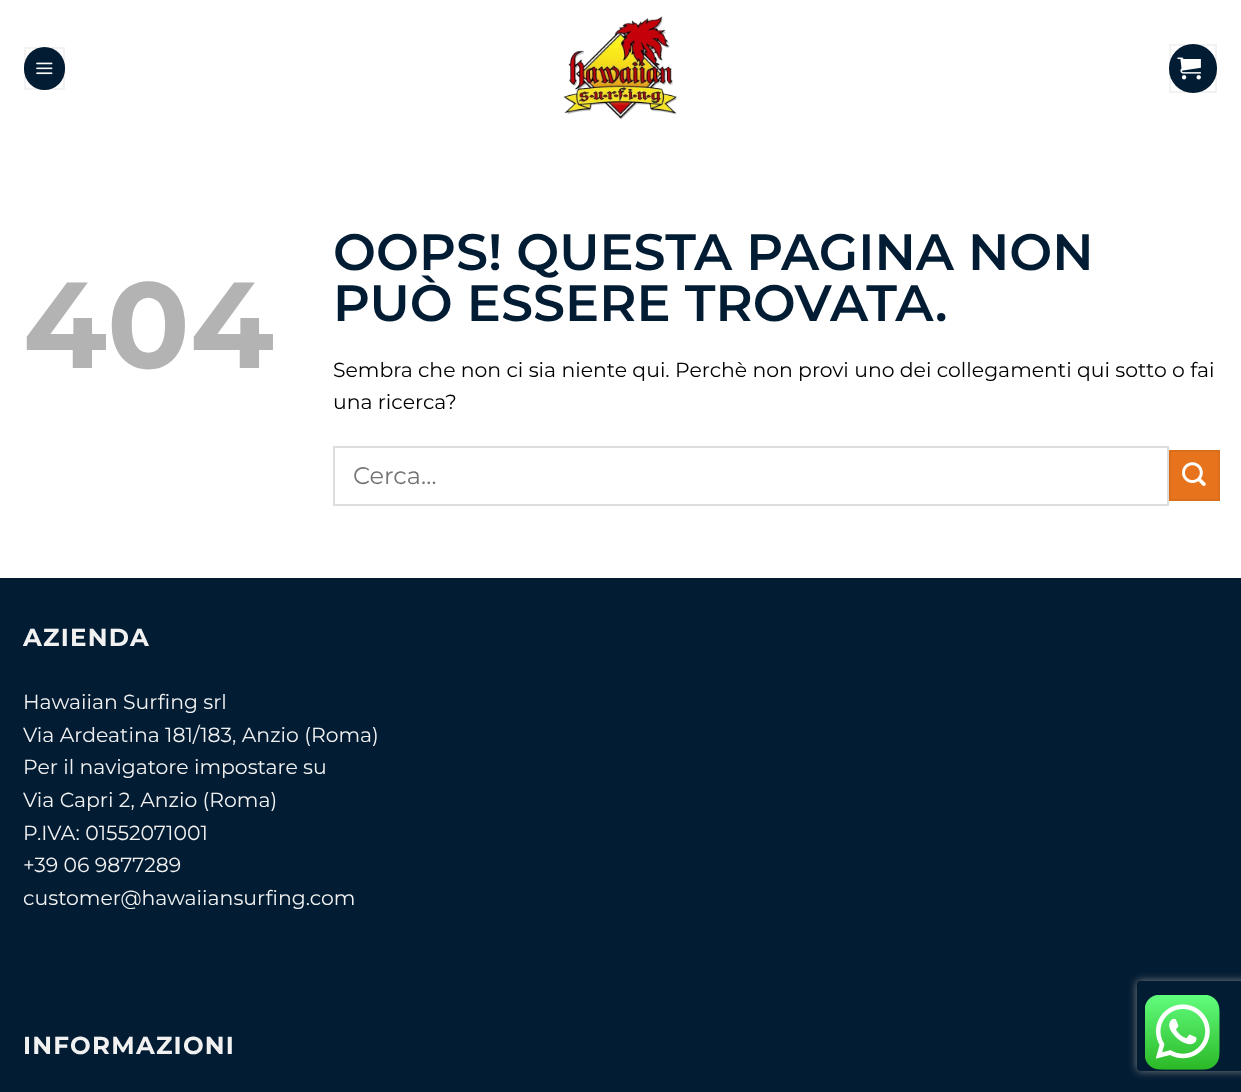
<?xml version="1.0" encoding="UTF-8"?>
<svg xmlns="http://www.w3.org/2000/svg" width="1241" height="1092">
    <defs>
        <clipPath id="clip1"><path d="M 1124 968 H 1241 V 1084 H 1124 Z M 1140 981 H 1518 C 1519.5 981 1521 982.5 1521 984 V 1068 C 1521 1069.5 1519.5 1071 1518 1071 H 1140 C 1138.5 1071 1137 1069.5 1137 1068 V 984 C 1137 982.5 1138.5 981 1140 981 Z" clip-rule="evenodd"/></clipPath>
        <filter id="blur1" x="-50%" y="-200%" width="200%" height="500%"><feGaussianBlur stdDeviation="4"/></filter>
    </defs>
    <rect width="100%" height="100%" fill="#FFFFFF"/>
    <rect x="24" y="47" width="41" height="43" rx="20.5" fill="#021C33"/>
    <rect x="25" y="48" width="39" height="41" fill="none" stroke="#000000" stroke-opacity="0.05" stroke-width="2"/>
    <image x="36" y="62" width="17" height="13" href="img_01.png"/>
    <image x="563" y="16" width="114" height="104" href="img_02.png"/>
    <rect x="1169" y="44" width="48" height="49" rx="24" fill="#021C33"/>
    <rect x="1170" y="45" width="46" height="47" fill="none" stroke="#000000" stroke-opacity="0.05" stroke-width="2"/>
    <image x="1177" y="57" width="24" height="23" href="img_03.png"/>
    <text x="23" y="368" font-family="Montserrat" font-size="122" font-weight="700" fill="#B3B3B3">404</text>
    <text font-family="Montserrat" font-size="51" font-weight="600" fill="#021C33">
        <tspan x="333" y="270">OOPS! QUESTA PAGINA NON</tspan>
        <tspan x="333" y="321">PUÒ ESSERE TROVATA.</tspan>
    </text>
    <text font-family="Montserrat" font-size="20.4" fill="#000000">
        <tspan x="333" y="377">Sembra che non ci sia niente qui. Perchè non provi uno dei collegamenti qui sotto o fai</tspan>
        <tspan x="333" y="409">una ricerca?</tspan>
    </text>
    <rect x="334" y="447" width="834" height="58" fill="none" stroke="#DDDDDD" stroke-width="2"/>
    <text x="353" y="484" font-family="Montserrat" font-size="24" fill="#757575">Cerca…</text>
    <rect x="1170" y="451" width="49" height="49" fill="#E7741C" stroke="#DB6E1B" stroke-width="2"/>
    <image x="1182" y="462" width="24" height="24" href="img_04.png"/>
    <rect x="0" y="580" width="1241" height="512" fill="#021C33"/>
    <rect x="0" y="578" width="1241" height="2" fill="#021B30"/>
    <text x="23" y="646" font-family="Montserrat" font-size="24.5" font-weight="700" letter-spacing="1.25" fill="#F1F1F1">AZIENDA</text>
    <text font-family="Montserrat" font-size="20.4" fill="#F1F1F1">
        <tspan x="23" y="709">Hawaiian Surfing srl</tspan>
        <tspan x="23" y="742">Via Ardeatina 181/183, Anzio (Roma)</tspan>
        <tspan x="23" y="774">Per il navigatore impostare su</tspan>
        <tspan x="23" y="807">Via Capri 2, Anzio (Roma)</tspan>
        <tspan x="23" y="840">P.IVA: 01552071001</tspan>
        <tspan x="23" y="872">+39 06 9877289</tspan>
        <tspan x="23" y="905">customer@hawaiiansurfing.com</tspan>
    </text>
    <text x="23" y="1054" font-family="Montserrat" font-size="24.5" font-weight="700" letter-spacing="1.25" fill="#F1F1F1">INFORMAZIONI</text>
    <g clip-path="url(#clip1)">
        <rect x="1137" y="981" width="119" height="90" rx="3" fill="#808080" filter="url(#blur1)"/>
    </g>
    <image x="1145" y="995" width="75" height="75" href="img_05.png"/>
</svg>
